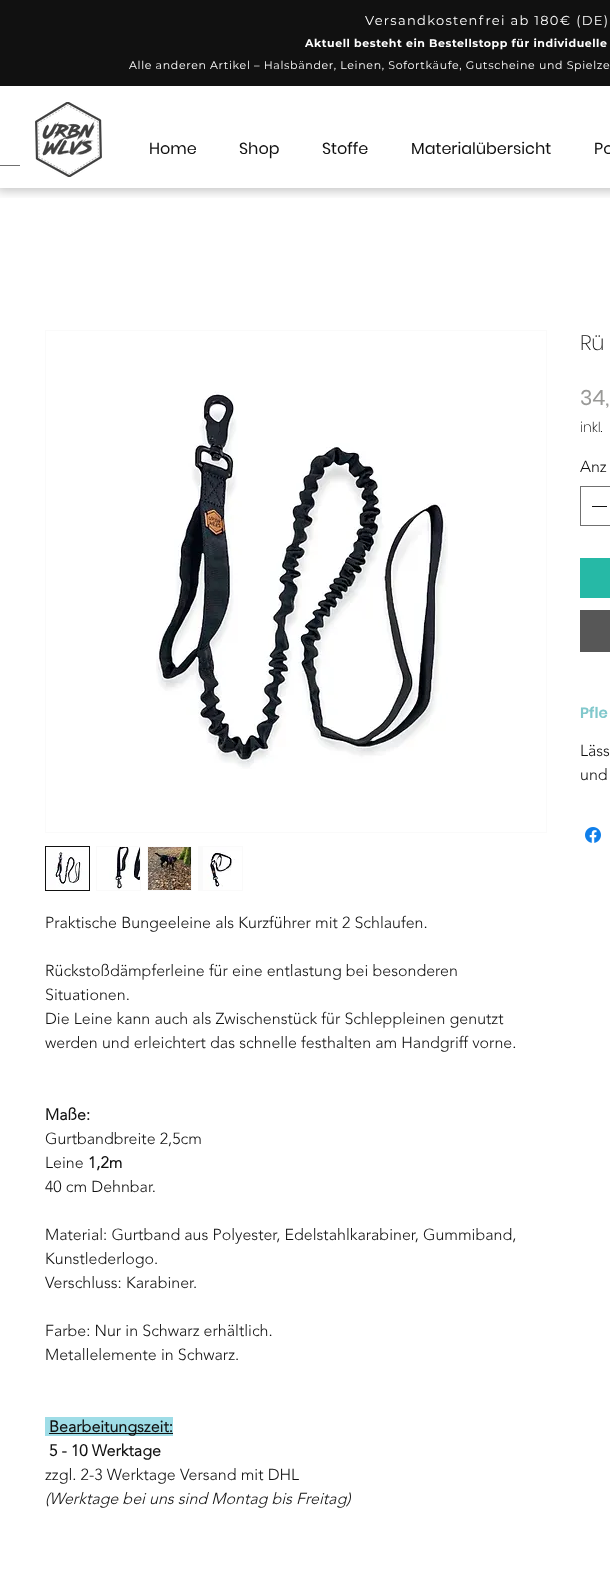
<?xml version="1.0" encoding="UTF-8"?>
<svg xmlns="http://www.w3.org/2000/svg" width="610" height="1573">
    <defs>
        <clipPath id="clip1"><rect x="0" y="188" width="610" height="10"/></clipPath>
        <filter id="blur1" x="-50%" y="-200%" width="200%" height="500%"><feGaussianBlur stdDeviation="5.5"/></filter>
    </defs>
    <rect width="100%" height="100%" fill="#FFFFFF"/>
    <g clip-path="url(#clip1)">
        <rect x="-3" y="-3" width="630" height="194" fill="#000000" fill-opacity="0.23" filter="url(#blur1)"/>
    </g>
    <rect x="0" y="0" width="610" height="86" fill="#111111"/>
    <text x="365" y="25" font-family="Montserrat" font-size="13" letter-spacing="1.3" fill="#FFFFFF">Versandkostenfrei ab 180€ (DE)</text>
    <text x="305" y="47" font-family="Montserrat" font-size="11" font-weight="700" letter-spacing="0.55" fill="#FFFFFF">Aktuell besteht ein Bestellstopp für individuelle</text>
    <text x="129" y="69" font-family="Montserrat" font-size="11" letter-spacing="0.65" fill="#FFFFFF">Alle anderen Artikel – Halsbänder, Leinen, Sofortkäufe, Gutscheine und Spielze</text>
    <image x="35" y="102" width="67" height="75" href="img_01.png"/>
    <text x="149" y="154" font-family="Poppins" font-size="16" fill="#111111">Home</text>
    <text x="239" y="154" font-family="Poppins" font-size="16" fill="#111111">Shop</text>
    <text x="322" y="154" font-family="Poppins" font-size="16" fill="#111111">Stoffe</text>
    <text x="411" y="154" font-family="Poppins" font-size="16" fill="#111111">Materialübersicht</text>
    <text x="594" y="154" font-family="Poppins" font-size="16" fill="#111111">Po</text>
    <rect x="0" y="165" width="20" height="1" fill="#707070"/>
    <text x="580" y="350" font-family="Poppins" font-size="21" font-weight="200" fill="#111111">Rü</text>
    <text x="580" y="405" font-family="Poppins" font-size="21" fill="#999997">34,</text>
    <text x="580" y="432" font-family="Poppins" font-size="14" font-weight="200" fill="#000000">inkl.</text>
    <text x="580" y="472" font-family="'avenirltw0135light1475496'" font-size="16" font-weight="300" fill="#111111">Anz</text>
    <rect x="580.5" y="486.5" width="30" height="39" fill="none" stroke="#707070"/>
    <rect x="592" y="506" width="15" height="1" fill="#111111"/>
    <rect x="580" y="558" width="30" height="40" fill="#26B9A6"/>
    <rect x="580" y="610" width="30" height="42" fill="#575757"/>
    <text x="580" y="718" font-family="Poppins" font-size="15" font-weight="600" fill="#81C8CC">Pfle</text>
    <text font-family="'avenirltw0135light1475496'" font-size="16" font-weight="300" fill="#111111">
        <tspan x="580" y="756">Läss</tspan>
        <tspan x="580" y="780">und</tspan>
    </text>
    <image x="585" y="827" width="16" height="16" href="img_02.png"/>
    <rect x="45.5" y="330.5" width="501" height="502" fill="none" stroke="#FAFAFA"/>
    <image x="156" y="391" width="292" height="378" href="img_03.png"/>
    <rect x="45.5" y="846.5" width="44" height="44" fill="none" stroke="#111111"/>
    <image x="46" y="847" width="43" height="43" href="img_04.png"/>
    <rect x="96" y="846" width="45" height="45" fill="#FAFAFA"/>
    <image x="97" y="847" width="43" height="43" href="img_05.png"/>
    <rect x="147" y="846" width="45" height="45" fill="#FAFAFA"/>
    <image x="148" y="847" width="43" height="43" href="img_06.png"/>
    <rect x="198" y="846" width="45" height="45" fill="#FAFAFA"/>
    <image x="203" y="847" width="39" height="43" href="img_07.png"/>
    <text x="45" y="928" font-family="'avenirltw0135light1475496'" font-size="16" font-weight="300" fill="#111111">Praktische Bungeeleine als Kurzführer mit 2 Schlaufen.</text>
    <text font-family="'avenirltw0135light1475496'" font-size="16" font-weight="300" fill="#111111">
        <tspan x="45" y="976">Rückstoßdämpferleine für eine entlastung bei besonderen</tspan>
        <tspan x="45" y="1000">Situationen.</tspan>
        <tspan x="45" y="1024">Die Leine kann auch als Zwischenstück für Schleppleinen genutzt</tspan>
        <tspan x="45" y="1048">werden und erleichtert das schnelle festhalten am Handgriff vorne.</tspan>
    </text>
    <text x="45" y="1120" font-family="'avenirltw0135light1475496'" font-size="16" font-weight="700" fill="#111111">Maße:</text>
    <text font-family="'avenirltw0135light1475496'" font-size="16" font-weight="300" fill="#111111">
        <tspan x="45" y="1144">Gurtbandbreite 2,5cm</tspan>
        <tspan x="45" y="1168">Leine</tspan>
    </text>
    <text x="88" y="1168" font-family="'avenirltw0135light1475496'" font-size="16" font-weight="700" fill="#111111">1,2m</text>
    <text x="45" y="1192" font-family="'avenirltw0135light1475496'" font-size="16" font-weight="300" fill="#111111">40 cm Dehnbar.</text>
    <text font-family="'avenirltw0135light1475496'" font-size="16" font-weight="300" fill="#111111">
        <tspan x="45" y="1240">Material: Gurtband aus Polyester, Edelstahlkarabiner, Gummiband,</tspan>
        <tspan x="45" y="1264">Kunstlederlogo.</tspan>
        <tspan x="45" y="1288">Verschluss: Karabiner.</tspan>
    </text>
    <text font-family="'avenirltw0135light1475496'" font-size="16" font-weight="300" fill="#111111">
        <tspan x="45" y="1336">Farbe: Nur in Schwarz erhältlich.</tspan>
        <tspan x="45" y="1360">Metallelemente in Schwarz.</tspan>
    </text>
    <rect x="45" y="1417" width="128" height="19" fill="#9FDDE7"/>
    <rect x="49" y="1433" width="124" height="1" fill="#111111"/>
    <text font-family="'avenirltw0135light1475496'" font-size="16" font-weight="700" fill="#111111">
        <tspan x="49" y="1432">Bearbeitungszeit:</tspan>
        <tspan x="49" y="1456">5 - 10 Werktage</tspan>
    </text>
    <text x="45" y="1480" font-family="'avenirltw0135light1475496'" font-size="16" font-weight="300" fill="#111111">zzgl. 2-3 Werktage Versand mit DHL</text>
    <text x="45" y="1504" font-family="'avenirltw0135light1475496'" font-size="16" font-weight="300" font-style="italic" fill="#111111">(Werktage bei uns sind Montag bis Freitag)</text>
</svg>
